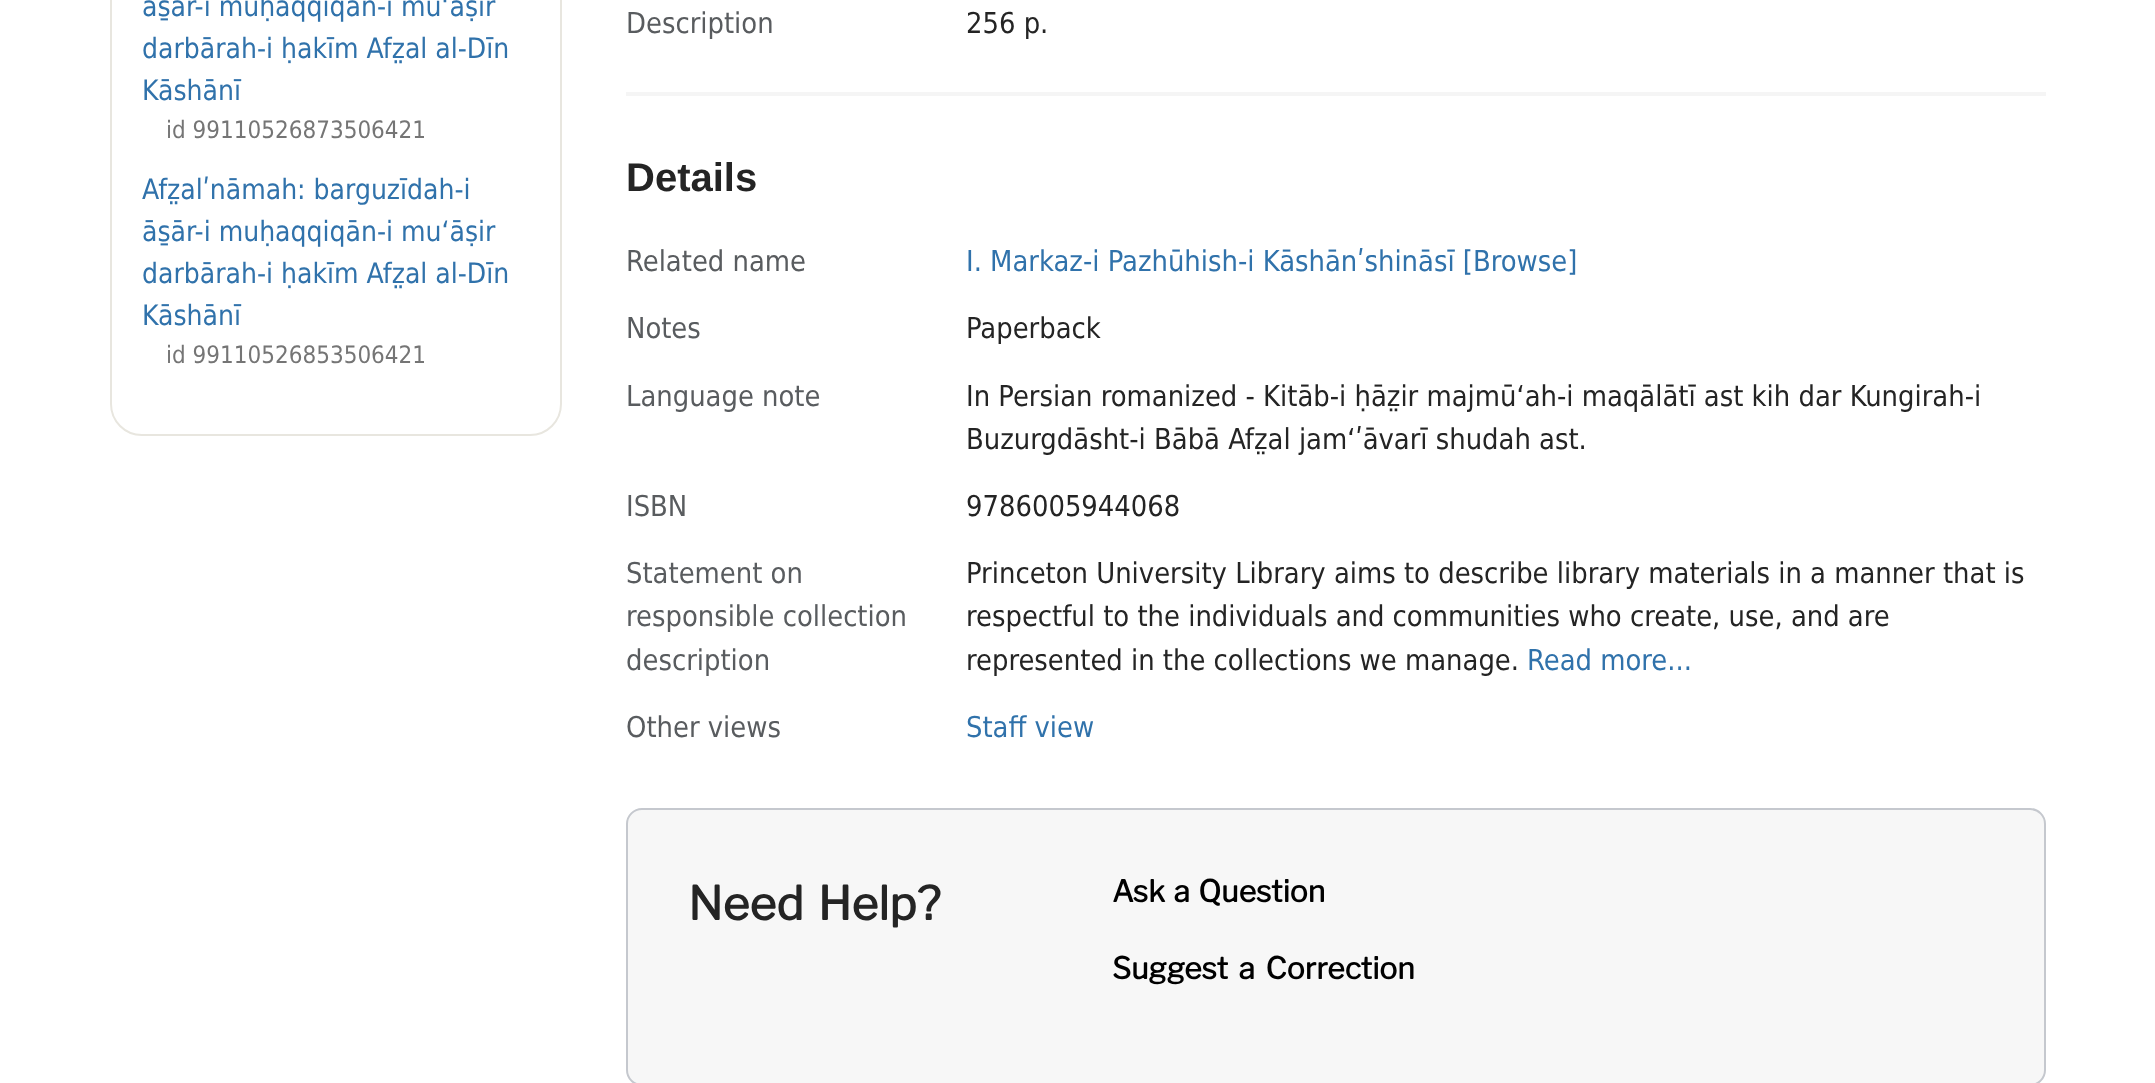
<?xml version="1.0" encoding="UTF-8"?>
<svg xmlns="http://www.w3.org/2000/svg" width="2155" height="1083">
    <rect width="100%" height="100%" fill="#FFFFFF"/>
    <rect x="111" y="-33" width="450" height="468" rx="31" fill="none" stroke="#E8E6DF" stroke-width="2"/>
    <text font-family="DejaVu Sans" font-size="28" fill="#3072AB">
        <tspan x="142" y="16">ās̱ār-i muḥaqqiqān-i muʻāṣir</tspan>
        <tspan x="142" y="58">darbārah-i ḥakīm Afz̤al al-Dīn</tspan>
        <tspan x="142" y="100">Kāshānī</tspan>
    </text>
    <text x="166" y="138" font-family="DejaVu Sans" font-size="24" fill="#757575">id 99110526873506421</text>
    <text font-family="DejaVu Sans" font-size="28" fill="#3072AB">
        <tspan x="142" y="199">Afz̤alʹnāmah: barguzīdah-i</tspan>
        <tspan x="142" y="241">ās̱ār-i muḥaqqiqān-i muʻāṣir</tspan>
        <tspan x="142" y="283">darbārah-i ḥakīm Afz̤al al-Dīn</tspan>
        <tspan x="142" y="325">Kāshānī</tspan>
    </text>
    <text x="166" y="363" font-family="DejaVu Sans" font-size="24" fill="#757575">id 99110526853506421</text>
    <rect x="626" y="92" width="1420" height="4" fill="#F5F5F5"/>
    <text x="626" y="33" font-family="DejaVu Sans" font-size="28.8" fill="#595C5F">Description</text>
    <text x="966" y="33" font-family="DejaVu Sans" font-size="28.8" fill="#242424">256 p.</text>
    <text x="626" y="191" font-family="Liberation Sans" font-size="40" font-weight="700" fill="#242424">Details</text>
    <text x="626" y="271" font-family="DejaVu Sans" font-size="28.8" fill="#595C5F">Related name</text>
    <text x="966" y="271" font-family="DejaVu Sans" font-size="28.8" fill="#3072AB">I. Markaz-i Pazhūhish-i Kāshānʹshināsī [Browse]</text>
    <text x="626" y="338" font-family="DejaVu Sans" font-size="28.8" fill="#595C5F">Notes</text>
    <text x="966" y="338" font-family="DejaVu Sans" font-size="28.8" fill="#242424">Paperback</text>
    <text x="626" y="406" font-family="DejaVu Sans" font-size="28.8" fill="#595C5F">Language note</text>
    <text font-family="DejaVu Sans" font-size="28.8" fill="#242424">
        <tspan x="966" y="406">In Persian romanized - Kitāb-i ḥāz̤ir majmūʻah-i maqālātī ast kih dar Kungirah-i</tspan>
        <tspan x="966" y="449">Buzurgdāsht-i Bābā Afz̤al jamʻʹāvarī shudah ast.</tspan>
    </text>
    <text x="626" y="516" font-family="DejaVu Sans" font-size="28.8" fill="#595C5F">ISBN</text>
    <text x="966" y="516" font-family="DejaVu Sans" font-size="28.8" fill="#242424">9786005944068</text>
    <text font-family="DejaVu Sans" font-size="28.8" fill="#595C5F">
        <tspan x="626" y="583">Statement on</tspan>
        <tspan x="626" y="626">responsible collection</tspan>
        <tspan x="626" y="670">description</tspan>
    </text>
    <text font-family="DejaVu Sans" font-size="28.8" fill="#242424">
        <tspan x="966" y="583">Princeton University Library aims to describe library materials in a manner that is</tspan>
        <tspan x="966" y="626">respectful to the individuals and communities who create, use, and are</tspan>
        <tspan x="966" y="670">represented in the collections we manage.</tspan>
    </text>
    <text x="1527" y="670" font-family="DejaVu Sans" font-size="28.8" fill="#3072AB">Read more...</text>
    <text x="626" y="737" font-family="DejaVu Sans" font-size="28.8" fill="#595C5F">Other views</text>
    <text x="966" y="737" font-family="DejaVu Sans" font-size="28.8" fill="#3072AB">Staff view</text>
    <rect x="627" y="809" width="1418" height="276" rx="15" fill="#F7F7F7" stroke="#C5C8CE" stroke-width="2"/>
    <text x="688" y="920" word-spacing="4" font-family="Libre Franklin" font-size="46" font-weight="700" fill="#242424">Need Help?</text>
    <text x="1112" y="902" word-spacing="2" font-family="Libre Franklin" font-size="30" font-weight="700" fill="#000000">Ask a Question</text>
    <text x="1112" y="979" word-spacing="4" font-family="Libre Franklin" font-size="30" font-weight="700" fill="#000000">Suggest a Correction</text>
</svg>
